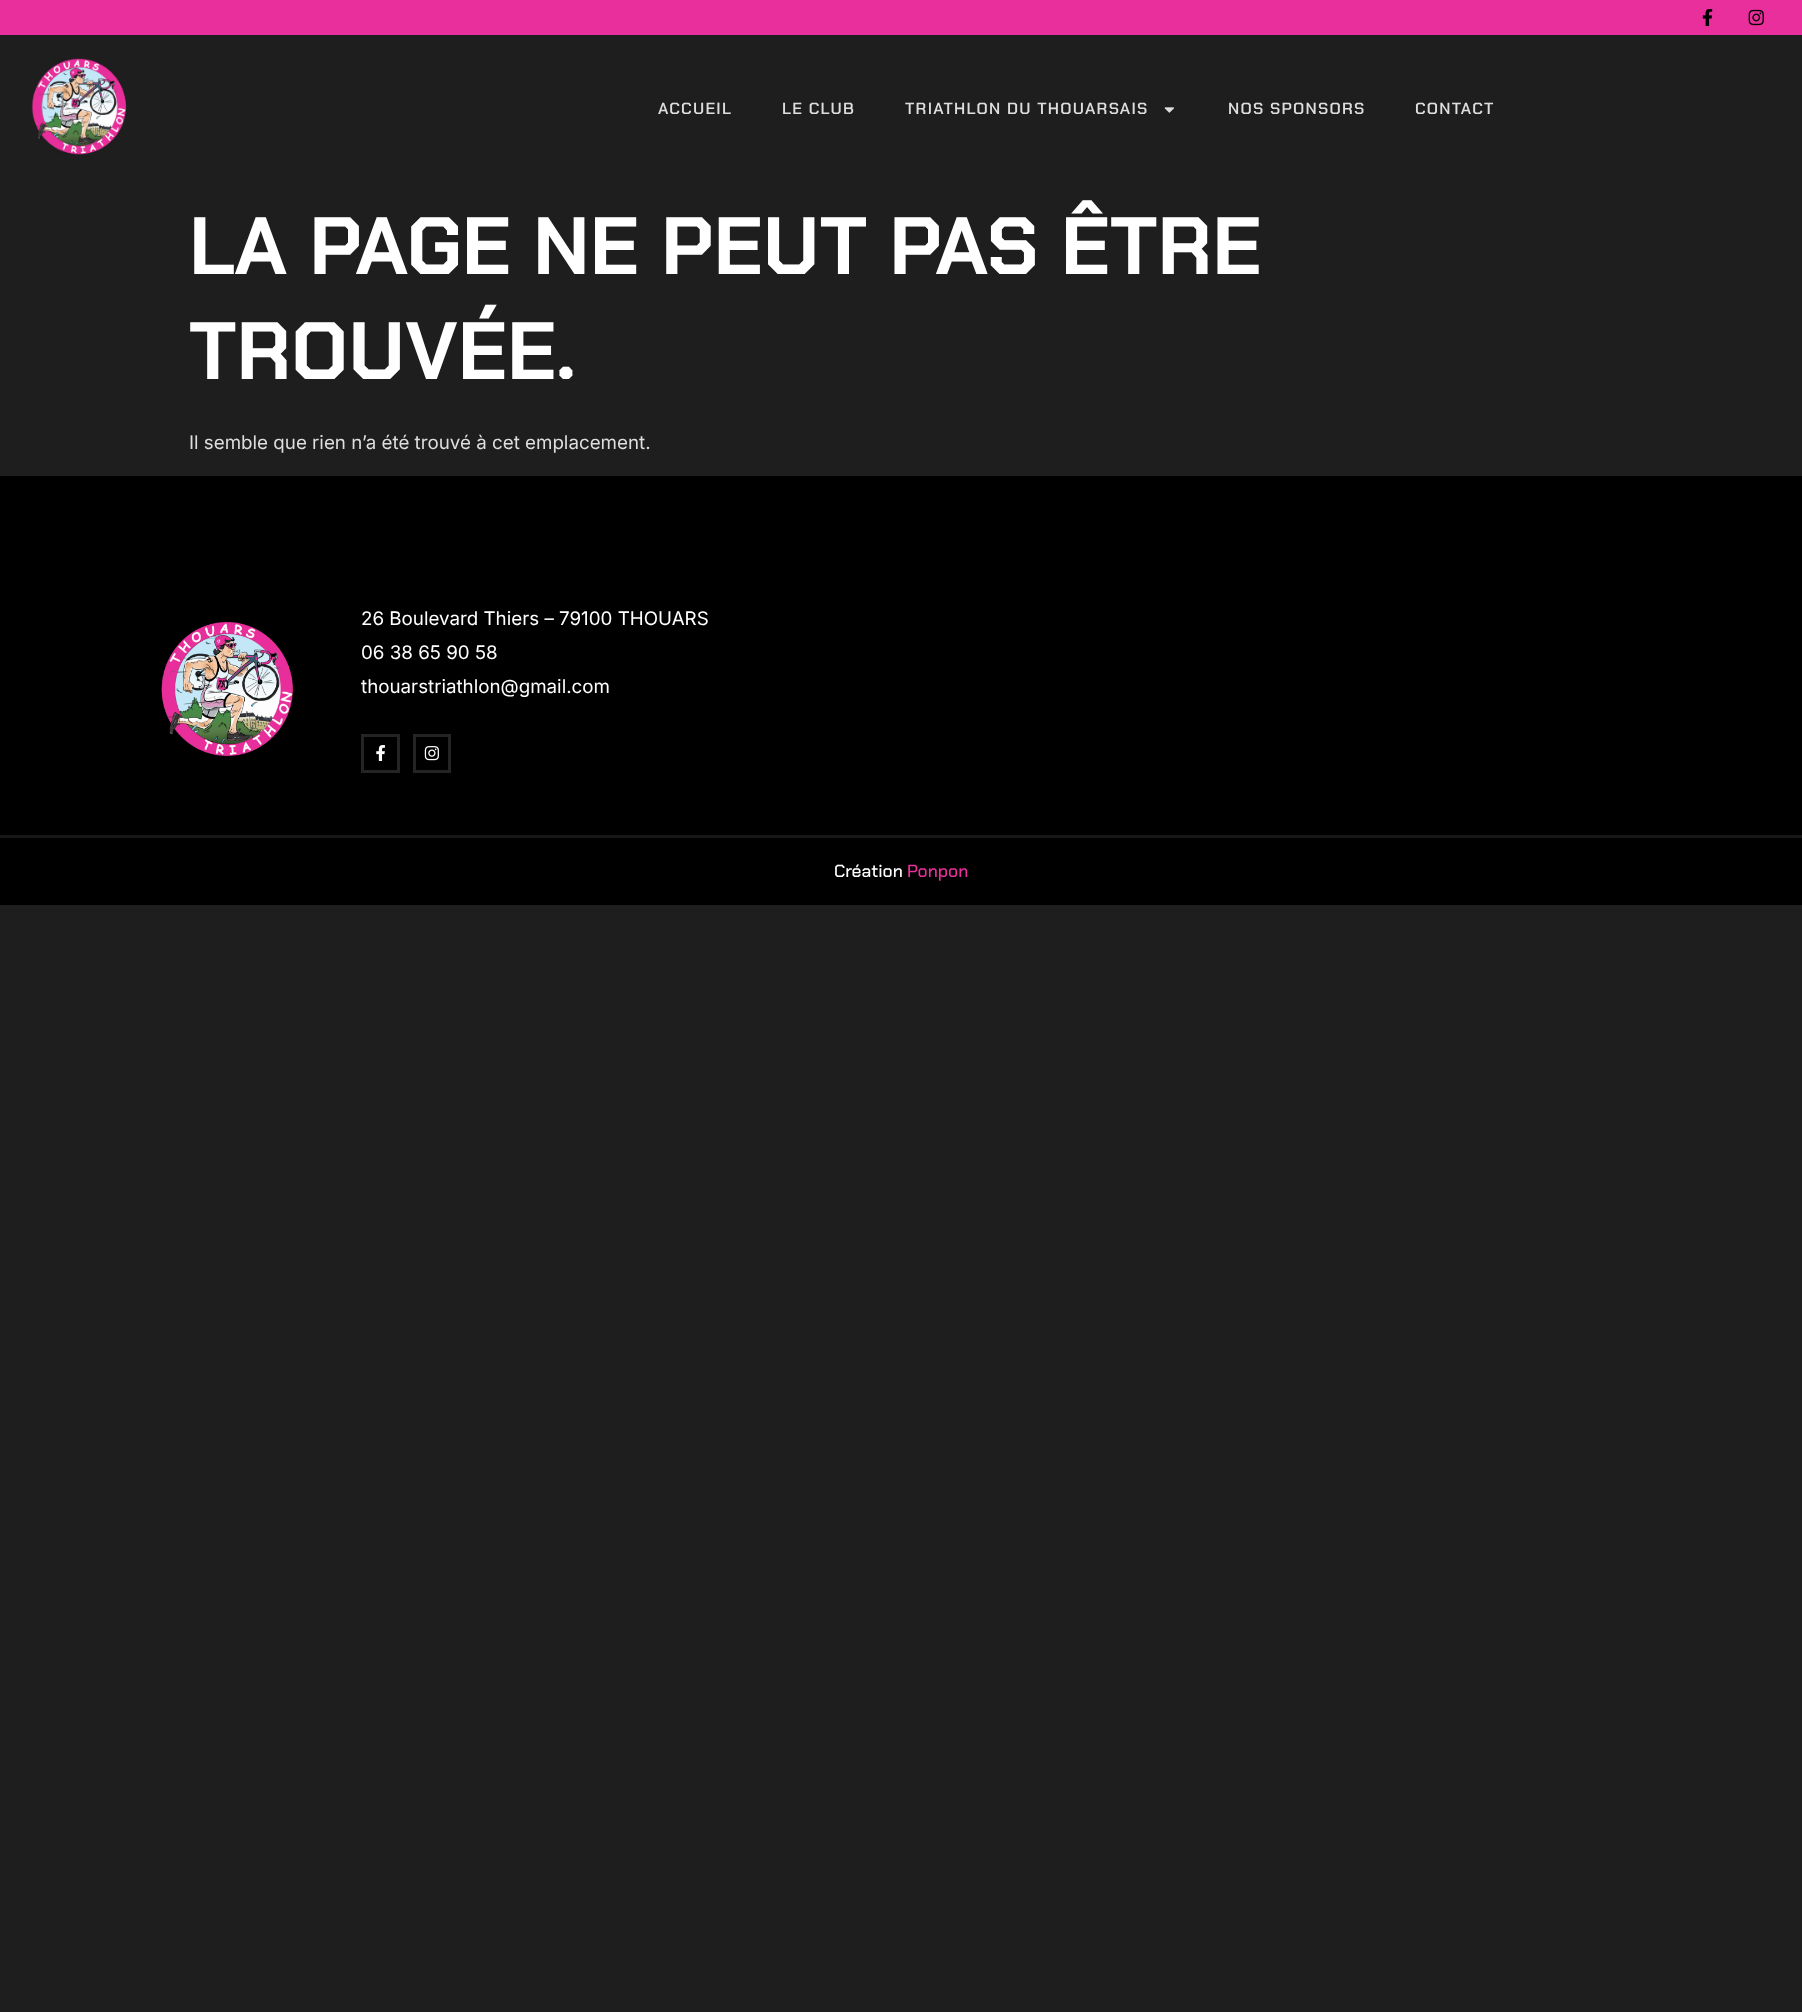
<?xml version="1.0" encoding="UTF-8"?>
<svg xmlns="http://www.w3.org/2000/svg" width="1802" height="2012">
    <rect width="100%" height="100%" fill="#1E1E1E"/>
    <rect x="0" y="0" width="1802" height="35" fill="#E92F9C"/>
    <image x="1702" y="9" width="11" height="17" href="img_01.png"/>
    <image x="1748" y="9" width="16" height="17" href="img_02.png"/>
    <image x="31" y="58" width="96" height="97" href="img_03.png"/>
    <text x="658" y="114" font-family="Chakra Petch" font-size="16.25" font-weight="600" letter-spacing="1.25" fill="#DEDEDE">ACCUEIL</text>
    <text x="782" y="114" font-family="Chakra Petch" font-size="16.25" font-weight="600" letter-spacing="1.25" fill="#DEDEDE">LE CLUB</text>
    <text x="905" y="114" font-family="Chakra Petch" font-size="16.25" font-weight="600" letter-spacing="1.25" fill="#DEDEDE">TRIATHLON DU THOUARSAIS</text>
    <image x="1164" y="107" width="10" height="6" href="img_04.png"/>
    <text x="1228" y="114" font-family="Chakra Petch" font-size="16.25" font-weight="600" letter-spacing="1.25" fill="#DEDEDE">NOS SPONSORS</text>
    <text x="1415" y="114" font-family="Chakra Petch" font-size="16.25" font-weight="600" letter-spacing="1.25" fill="#DEDEDE">CONTACT</text>
    <text font-family="Chakra Petch" font-size="81.25" font-weight="700" fill="#FFFFFF">
        <tspan x="189" y="274">LA PAGE NE PEUT PAS ÊTRE</tspan>
        <tspan x="189" y="379">TROUVÉE.</tspan>
    </text>
    <text x="189" y="449" font-family="Inter" font-size="18.75" fill="#DEDEDE">Il semble que rien n’a été trouvé à cet emplacement.</text>
    <rect x="0" y="476" width="1802" height="359" fill="#000000"/>
    <image x="161" y="621" width="132" height="136" href="img_05.png"/>
    <text font-family="Inter" font-size="18.75" fill="#FFFFFF">
        <tspan x="361" y="625">26 Boulevard Thiers – 79100 THOUARS</tspan>
        <tspan x="361" y="659">06 38 65 90 58</tspan>
        <tspan x="361" y="693">thouarstriathlon@gmail.com</tspan>
    </text>
    <rect x="362.5" y="735.5" width="36" height="36" fill="none" stroke="#242424" stroke-width="3"/>
    <image x="376" y="745" width="9" height="16" href="img_06.png"/>
    <rect x="414.5" y="735.5" width="35" height="36" fill="none" stroke="#242424" stroke-width="3"/>
    <image x="424" y="746" width="15" height="15" href="img_07.png"/>
    <rect x="0" y="838" width="1802" height="67" fill="#000000"/>
    <rect x="0" y="835" width="1802" height="3" fill="#171717"/>
    <text x="834" y="877" font-family="Chakra Petch" font-size="17.5" font-weight="500" fill="#FFFFFF">Création</text>
    <text x="907" y="877" font-family="Chakra Petch" font-size="17.5" font-weight="500" fill="#E92F9C">Ponpon</text>
</svg>
